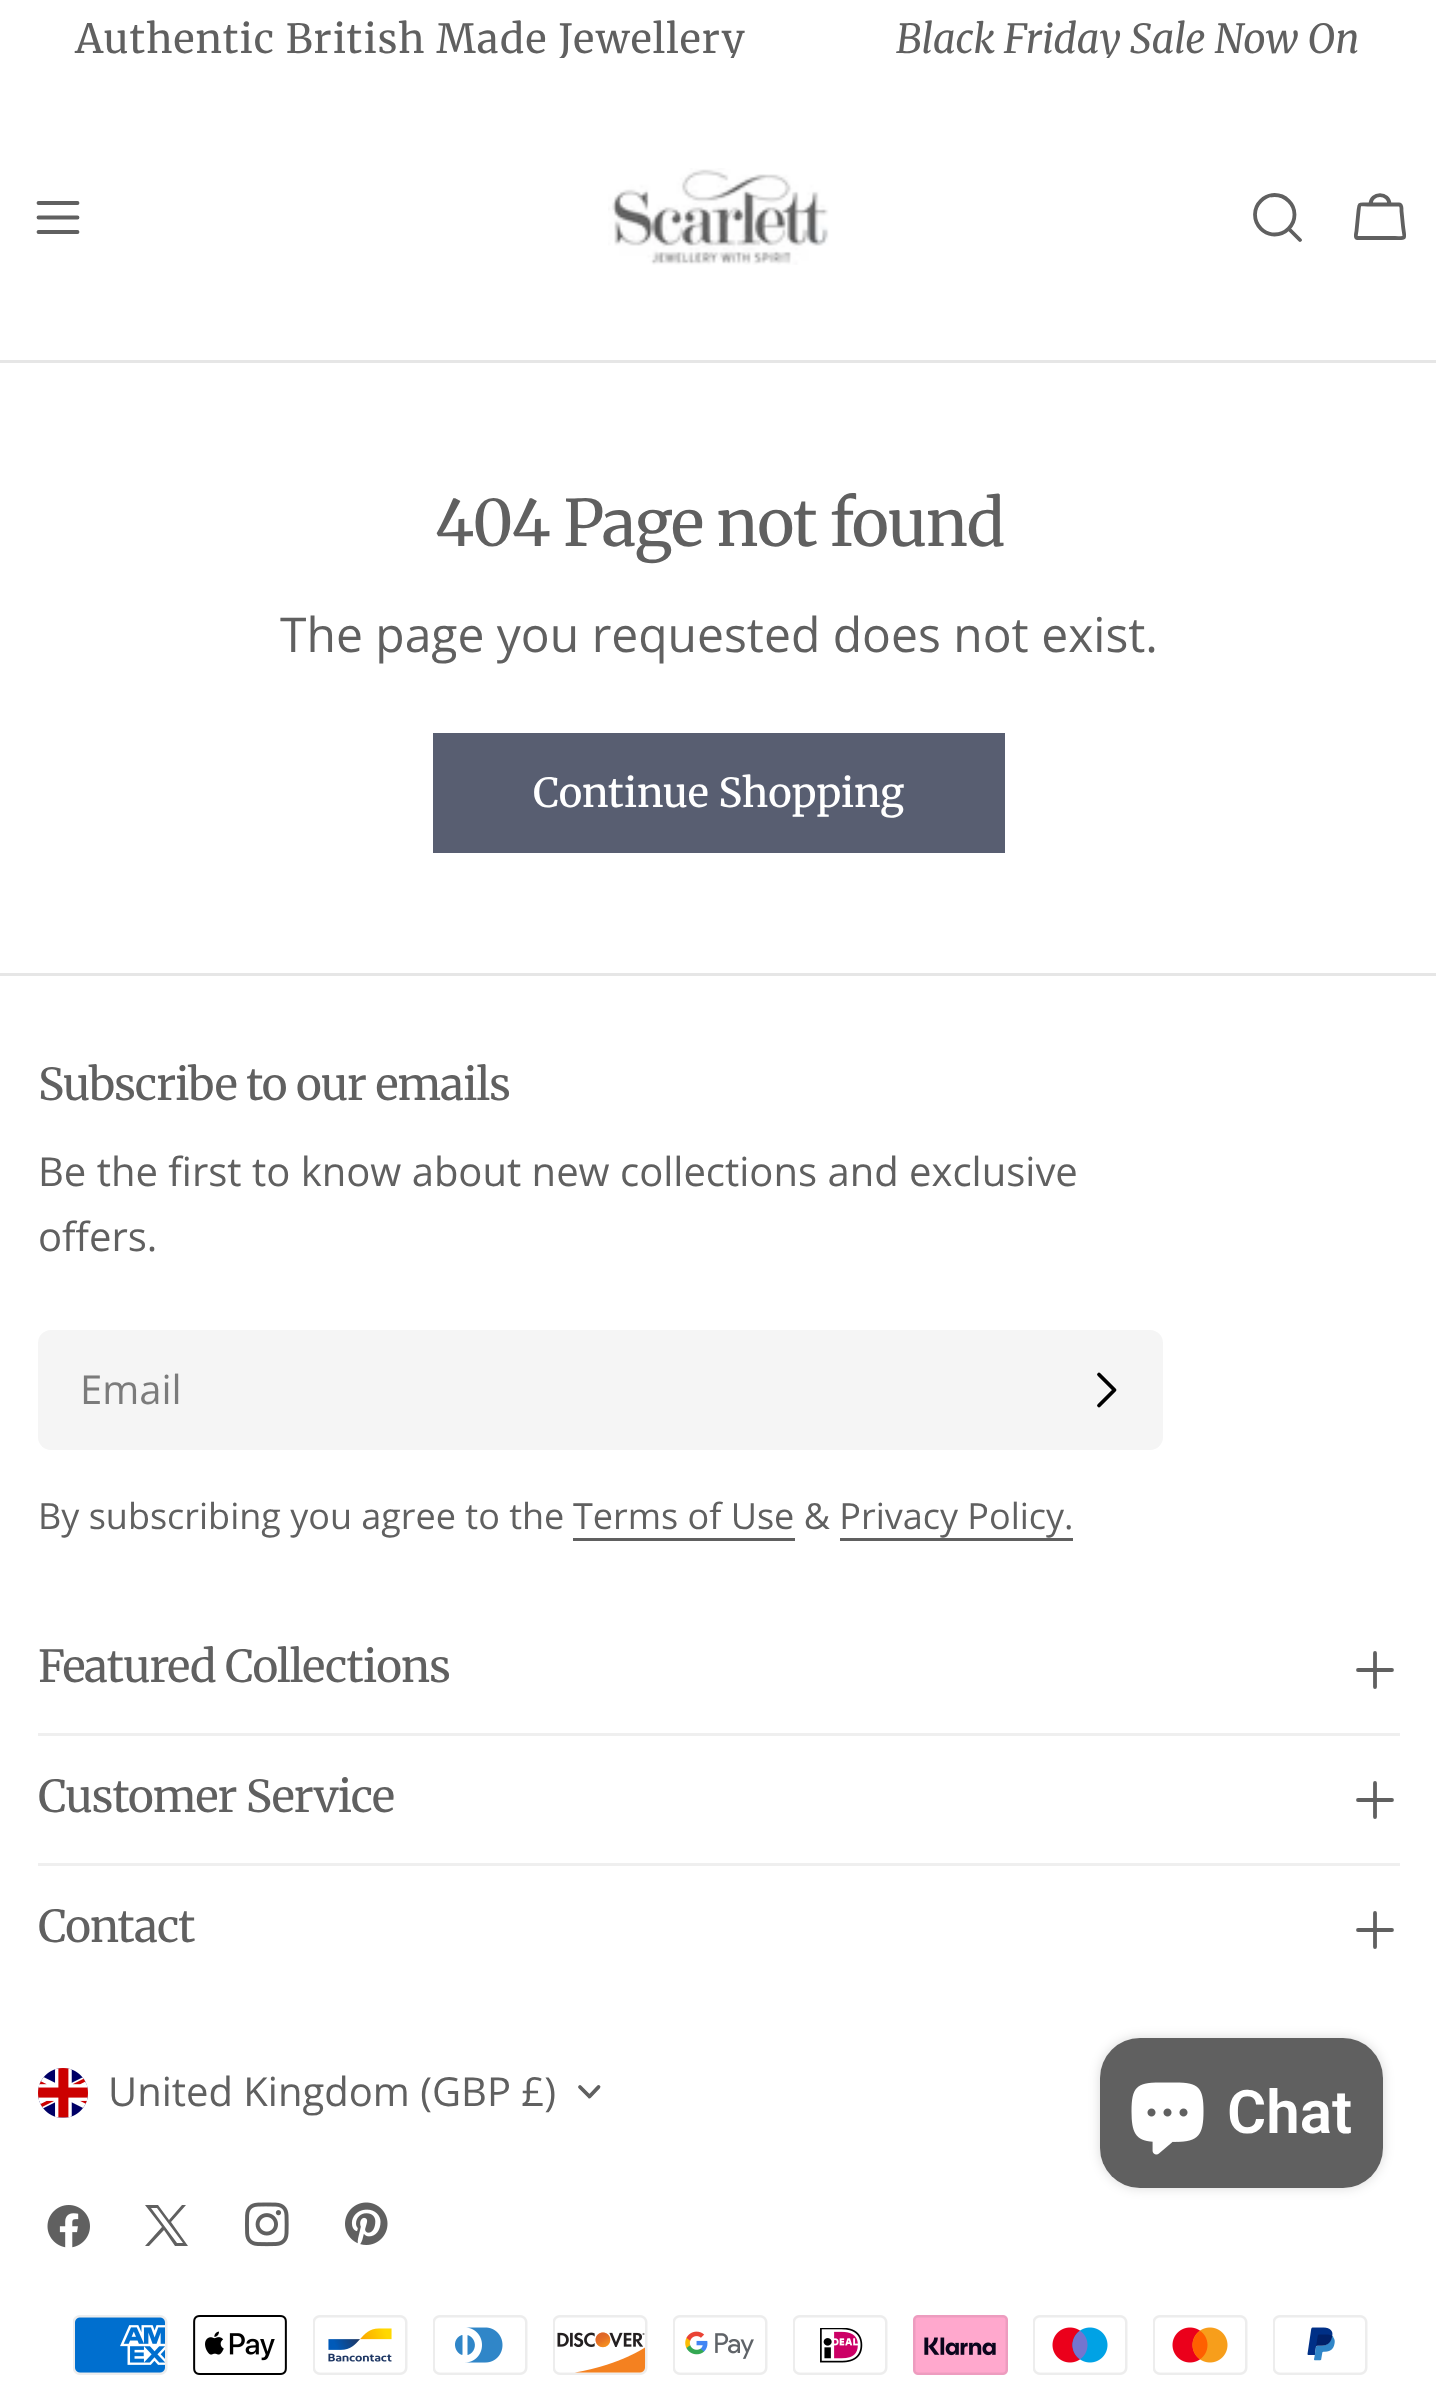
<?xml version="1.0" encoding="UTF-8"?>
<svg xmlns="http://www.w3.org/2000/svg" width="1436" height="2398">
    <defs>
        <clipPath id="clip1"><rect x="0" y="18" width="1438" height="40"/></clipPath>
        <filter id="blur1" x="-50%" y="-200%" width="200%" height="500%"><feGaussianBlur stdDeviation="6"/></filter>
    </defs>
    <rect width="100%" height="100%" fill="#FFFFFF"/>
    <g clip-path="url(#clip1)">
        <text x="75" y="53" font-family="'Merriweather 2'" font-size="40" letter-spacing="1.2" fill="#606060">Authentic British Made Jewellery</text>
        <text x="896" y="53" font-family="Merriweather" font-size="40" font-style="italic" fill="#606060">Black Friday Sale Now On</text>
    </g>
    <rect x="0" y="360" width="1436" height="3" fill="#E6E6E6"/>
    <path d="M 38.5 217.5 H 77.5 M 38.5 203 H 77.5 M 38.5 232 H 77.5" fill="none" stroke="#606060" stroke-width="3.8" stroke-linecap="round" stroke-linejoin="round"/>
    <image x="608" y="168" width="221" height="97" href="img_01.png"/>
    <path d="M 1274.5 234.5 C 1285.5 234.5 1294.5 225.5 1294.5 214.5 C 1294.5 204 1285.5 195 1274.5 195 C 1264 195 1255 204 1255 214.5 C 1255 225.5 1264 234.5 1274.5 234.5 Z M 1288.5 228.5 L 1300 240" fill="none" stroke="#606060" stroke-width="3.8" stroke-linecap="round" stroke-linejoin="round"/>
    <path d="M 1399 204.5 H 1367.5 C 1358.5 204.5 1359.5 203 1358.5 211 L 1356.5 231 C 1356.5 232 1354.5 238 1357.5 238 H 1395 C 1407 238 1404.5 239.5 1403 226 L 1401.5 211 C 1401.5 210 1402 204.5 1399 204.5 Z M 1370.5 204.5 C 1370.5 192 1389.5 192 1389.5 204.5" fill="none" stroke="#606060" stroke-width="3.8" stroke-linecap="round" stroke-linejoin="round"/>
    <text x="435" y="546" font-family="Merriweather" font-size="64" letter-spacing="-1.25" fill="#606060">404 Page not found</text>
    <text x="280" y="652" font-family="Open Sans" font-size="48" fill="#606060">The page you requested does not exist.</text>
    <rect x="433" y="733" width="572" height="120" fill="#585E71"/>
    <text x="533" y="807" font-family="Merriweather" font-size="40" font-weight="500" fill="#FFFFFF">Continue Shopping</text>
    <rect x="0" y="973" width="1436" height="3" fill="#E6E6E6"/>
    <text x="38" y="1100" font-family="'Merriweather 2'" font-size="44" letter-spacing="-0.9" fill="#606060">Subscribe to our emails</text>
    <text font-family="Open Sans" font-size="40" fill="#606060">
        <tspan x="38" y="1186">Be the first to know about new collections and exclusive</tspan>
        <tspan x="38" y="1251">offers.</tspan>
    </text>
    <rect x="38" y="1330" width="1125" height="120" rx="13" fill="#F5F5F5"/>
    <text x="80" y="1404" font-family="Open Sans" font-size="40" fill="#7B7B7B">Email</text>
    <path d="M 1099 1374.5 L 1114.5 1390 L 1099 1405.5" fill="none" stroke="#000000" stroke-width="3.8" stroke-linecap="round" stroke-linejoin="round"/>
    <text x="38" y="1529" font-family="Open Sans" font-size="36" fill="#606060">By subscribing you agree to the</text>
    <text x="573" y="1529" font-family="Open Sans" font-size="36" fill="#606060">Terms of Use &amp; Privacy Policy.</text>
    <rect x="573" y="1538" width="222" height="3" fill="#606060"/>
    <rect x="840" y="1538" width="233" height="3" fill="#606060"/>
    <text x="38" y="1682" font-family="'Merriweather 2'" font-size="44" letter-spacing="-0.9" fill="#606060">Featured Collections</text>
    <path d="M 1358 1670 H 1392 M 1375 1653 V 1687" fill="none" stroke="#606060" stroke-width="3.8" stroke-linecap="round" stroke-linejoin="round"/>
    <rect x="38" y="1733" width="1362" height="3" fill="#EFEFEF"/>
    <text x="38" y="1812" font-family="'Merriweather 2'" font-size="44" letter-spacing="-0.9" fill="#606060">Customer Service</text>
    <path d="M 1358 1800 H 1392 M 1375 1783 V 1817" fill="none" stroke="#606060" stroke-width="3.8" stroke-linecap="round" stroke-linejoin="round"/>
    <rect x="38" y="1863" width="1362" height="3" fill="#EFEFEF"/>
    <text x="38" y="1942" font-family="'Merriweather 2'" font-size="44" letter-spacing="-0.9" fill="#606060">Contact</text>
    <path d="M 1358 1930 H 1392 M 1375 1913 V 1947" fill="none" stroke="#606060" stroke-width="3.8" stroke-linecap="round" stroke-linejoin="round"/>
    <image x="38" y="2068" width="50" height="50" href="img_02.png"/>
    <text x="108" y="2106" font-family="Open Sans" font-size="40" fill="#606060">United Kingdom (GBP £)</text>
    <path d="M 598.5 2087 L 589.5 2096.5 L 580 2087" fill="none" stroke="#606060" stroke-width="3.8" stroke-linecap="round" stroke-linejoin="round"/>
    <image x="47" y="2205" width="43" height="43" href="img_03.png"/>
    <path d="M 145 2205 L 162 2227 L 145 2246 H 149 L 164 2230 L 175 2246 H 188 L 171 2222 L 186 2205 H 182 L 169 2220 L 158 2205 Z M 151 2208 H 157 L 183 2243 H 177 Z" fill="#606060"/>
    <image x="245" y="2202" width="44" height="45" href="img_04.png"/>
    <image x="345" y="2202" width="43" height="43" href="img_05.png"/>
    <image x="73" y="2315" width="95" height="60" href="img_06.png"/>
    <image x="193" y="2315" width="94" height="60" href="img_07.png"/>
    <image x="313" y="2315" width="95" height="60" href="img_08.png"/>
    <image x="433" y="2315" width="95" height="60" href="img_09.png"/>
    <image x="553" y="2315" width="95" height="60" href="img_10.png"/>
    <image x="673" y="2315" width="95" height="60" href="img_11.png"/>
    <image x="793" y="2315" width="95" height="60" href="img_12.png"/>
    <image x="913" y="2315" width="95" height="60" href="img_13.png"/>
    <image x="1033" y="2315" width="95" height="60" href="img_14.png"/>
    <image x="1153" y="2315" width="95" height="60" href="img_15.png"/>
    <image x="1273" y="2315" width="95" height="60" href="img_16.png"/>
    <rect x="1100" y="2038" width="283" height="150" rx="40" fill="#000000" fill-opacity="0.15" filter="url(#blur1)"/>
    <rect x="1100" y="2038" width="283" height="150" rx="40" fill="#606060"/>
    <image x="1131" y="2082" width="73" height="73" href="img_17.png"/>
    <text x="1227" y="2133" font-family="Roboto" font-size="60" font-weight="600" fill="#FFFFFF">Chat</text>
</svg>
